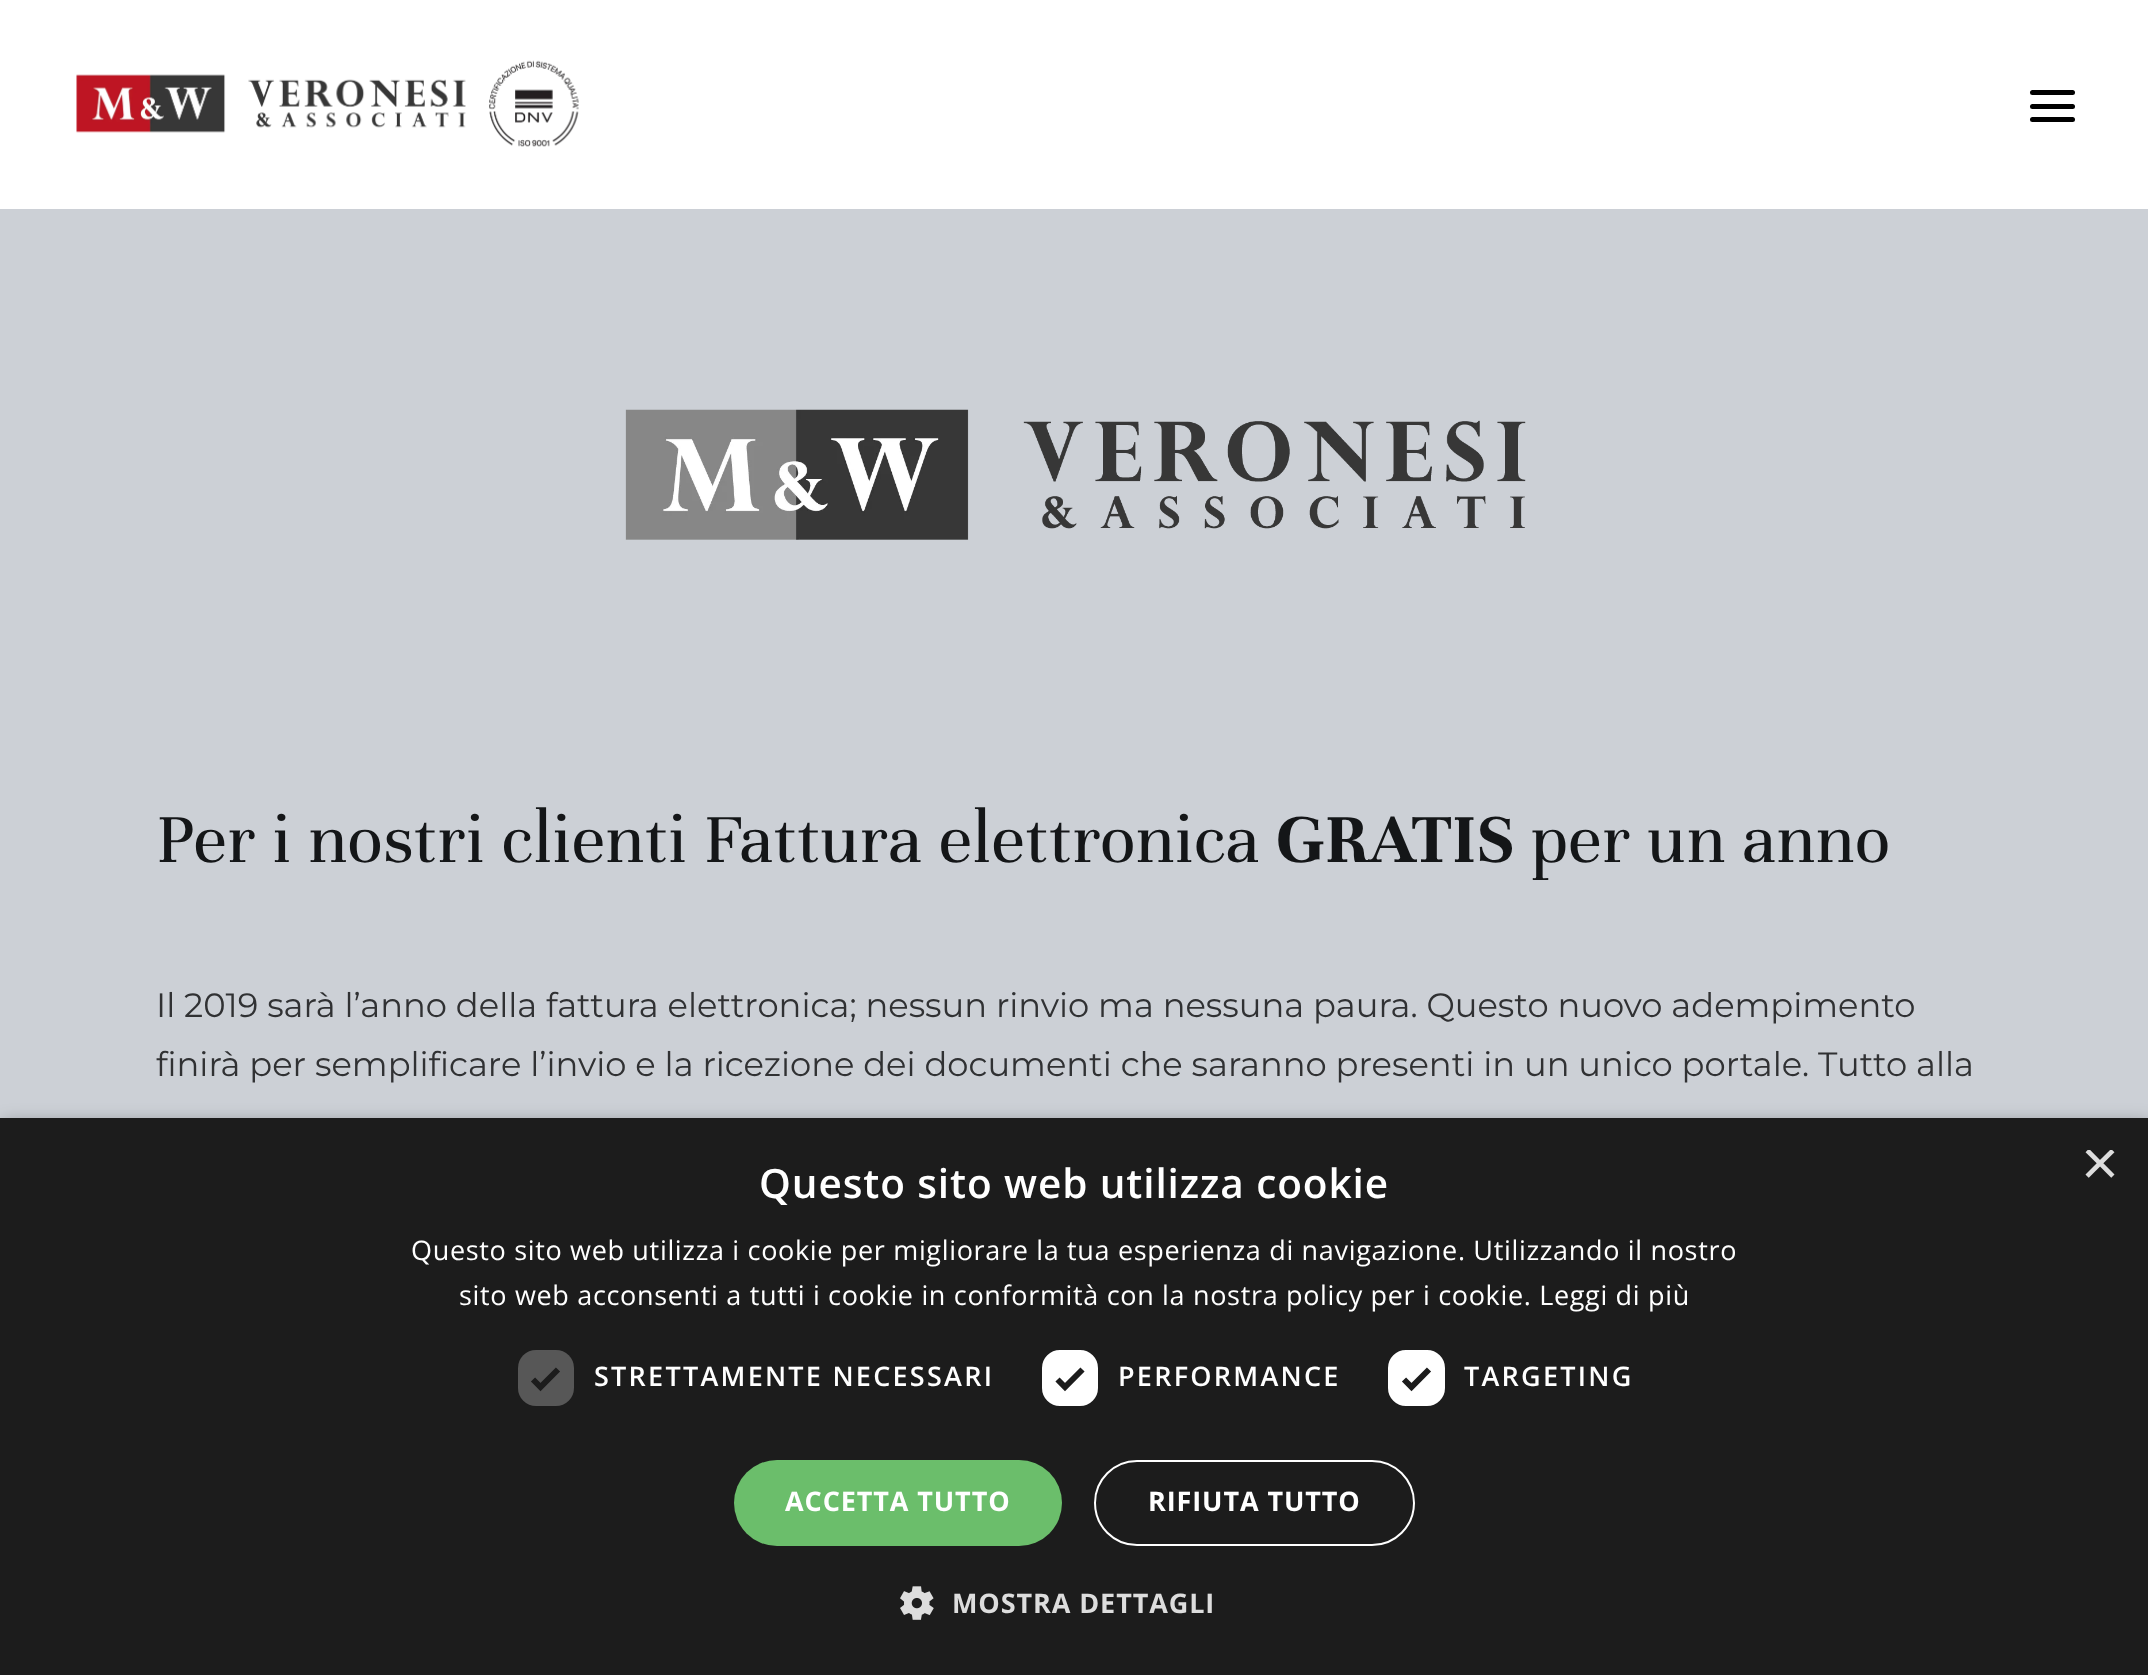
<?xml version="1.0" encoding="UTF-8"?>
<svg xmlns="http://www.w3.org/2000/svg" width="2148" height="1675">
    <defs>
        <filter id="blur1" x="-50%" y="-200%" width="200%" height="500%"><feGaussianBlur stdDeviation="9"/></filter>
        <clipPath id="clip1"><rect x="2081" y="1150" width="34" height="34"/></clipPath>
    </defs>
    <rect width="100%" height="100%" fill="#CCD0D6"/>
    <rect x="0" y="0" width="2148" height="209" fill="#FFFFFF"/>
    <image x="76" y="60" width="503" height="87" href="img_01.png"/>
    <rect x="2030" y="104" width="45" height="5" rx="2.5" fill="#000000"/>
    <rect x="2030" y="90" width="45" height="5" rx="2.5" fill="#000000"/>
    <rect x="2030" y="117" width="45" height="5" rx="2.5" fill="#000000"/>
    <image x="625" y="409" width="901" height="131" href="img_02.png"/>
    <text x="156" y="862" font-family="Unna" font-size="75" fill="#141618">Per i nostri clienti Fattura elettronica</text>
    <text x="1276" y="862" font-family="Unna" font-size="75" font-weight="700" fill="#141618">GRATIS</text>
    <text x="1531" y="862" font-family="Unna" font-size="75" fill="#141618">per un anno</text>
    <text font-family="Montserrat" font-size="33.75" fill="#303133">
        <tspan x="156" y="1017">Il 2019 sarà l’anno della fattura elettronica; nessun rinvio ma nessuna paura. Questo nuovo adempimento</tspan>
        <tspan x="156" y="1076">finirà per semplificare l’invio e la ricezione dei documenti che saranno presenti in un unico portale. Tutto alla</tspan>
    </text>
    <rect x="2" y="1123" width="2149" height="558" fill="#000000" fill-opacity="0.35" filter="url(#blur1)"/>
    <rect x="0" y="1118" width="2148" height="557" fill="#1C1C1C"/>
    <g clip-path="url(#clip1)">
        <text x="2081" y="1185" font-family="Liberation Sans" font-size="65" fill="#DDDDDD">×</text>
    </g>
    <text x="759" y="1198" font-family="Open Sans" font-size="40.5" font-weight="600" letter-spacing="0.9" fill="#FFFFFF">Questo sito web utilizza cookie</text>
    <text x="411" y="1260" font-family="Open Sans" font-size="27" letter-spacing="0.67" fill="#FFFFFF">Questo sito web utilizza i cookie per migliorare la tua esperienza di navigazione. Utilizzando il nostro</text>
    <text x="459" y="1305" font-family="Open Sans" font-size="27" letter-spacing="0.67" fill="#FFFFFF">sito web acconsenti a tutti i cookie in conformità con la nostra policy per i cookie. Leggi di più</text>
    <rect x="518" y="1350" width="56" height="56" rx="18" fill="#575757"/>
    <path d="M 533 1379.5 L 540.5 1387 L 558 1369.5" fill="none" stroke="#1C1C1C" stroke-width="5.9"/>
    <text x="594" y="1386" font-family="Open Sans" font-size="27" font-weight="600" letter-spacing="2.25" fill="#FFFFFF">STRETTAMENTE NECESSARI</text>
    <rect x="1044.5" y="1352.5" width="51" height="51" rx="15.5" fill="#FFFFFF" stroke="#FFFFFF" stroke-width="5"/>
    <path d="M 1057.5 1379.5 L 1065 1387 L 1082.5 1369.5" fill="none" stroke="#1C1C1C" stroke-width="5.9"/>
    <text x="1118" y="1386" font-family="Open Sans" font-size="27" font-weight="600" letter-spacing="2.25" fill="#FFFFFF">PERFORMANCE</text>
    <rect x="1390.5" y="1352.5" width="52" height="51" rx="15.5" fill="#FFFFFF" stroke="#FFFFFF" stroke-width="5"/>
    <path d="M 1404 1379.5 L 1411.5 1387 L 1429 1369.5" fill="none" stroke="#1C1C1C" stroke-width="5.9"/>
    <text x="1464" y="1386" font-family="Open Sans" font-size="27" font-weight="600" letter-spacing="2.25" fill="#FFFFFF">TARGETING</text>
    <rect x="734" y="1460" width="328" height="86" rx="43" fill="#6BBE6B"/>
    <text x="785" y="1511" font-family="Open Sans" font-size="27" font-weight="700" letter-spacing="0.9" fill="#FFFFFF">ACCETTA TUTTO</text>
    <rect x="1095" y="1461" width="319" height="84" rx="42" fill="none" stroke="#FFFFFF" stroke-width="2"/>
    <text x="1148" y="1511" font-family="Open Sans" font-size="27" font-weight="700" letter-spacing="0.9" fill="#FFFFFF">RIFIUTA TUTTO</text>
    <image x="900" y="1586" width="34" height="34" href="img_03.png"/>
    <text x="952" y="1613" font-family="Open Sans" font-size="27" font-weight="700" letter-spacing="0.9" fill="#DDDDDD">MOSTRA DETTAGLI</text>
</svg>
